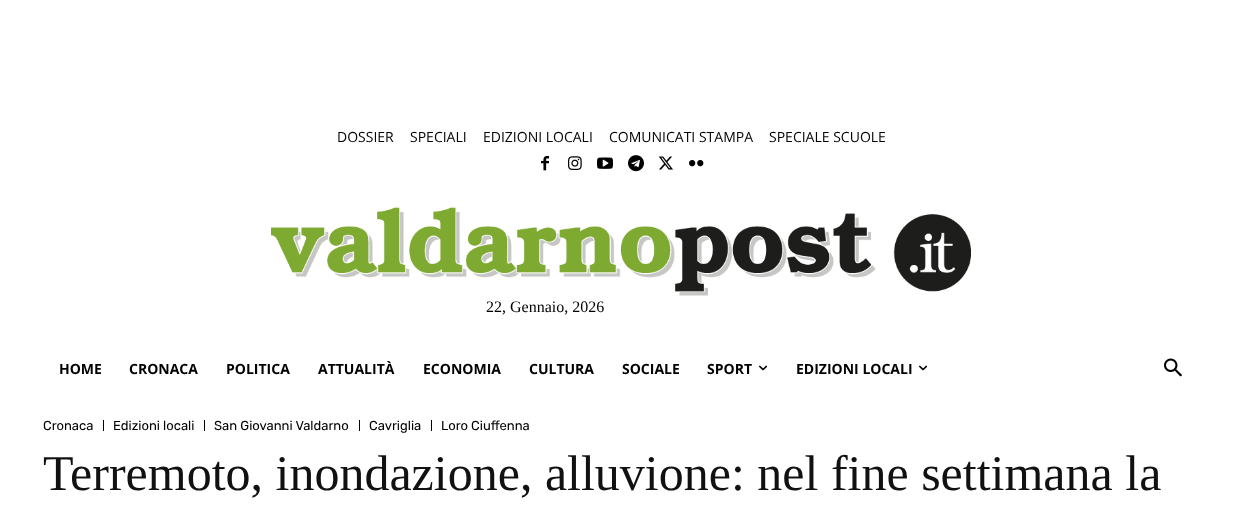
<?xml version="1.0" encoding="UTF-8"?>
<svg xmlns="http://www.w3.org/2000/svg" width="1241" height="507">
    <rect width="100%" height="100%" fill="#FFFFFF"/>
    <text x="337" y="142" font-family="Open Sans" font-size="14" fill="#000000">DOSSIER</text>
    <text x="410" y="142" font-family="Open Sans" font-size="14" fill="#000000">SPECIALI</text>
    <text x="483" y="142" font-family="Open Sans" font-size="14" fill="#000000">EDIZIONI LOCALI</text>
    <text x="609" y="142" font-family="Open Sans" font-size="14" fill="#000000">COMUNICATI STAMPA</text>
    <text x="769" y="142" font-family="Open Sans" font-size="14" fill="#000000">SPECIALE SCUOLE</text>
    <image x="541" y="155" width="8" height="16" href="img_01.png"/>
    <image x="568" y="156" width="14" height="14" href="img_02.png"/>
    <image x="597" y="157" width="16" height="12" href="img_03.png"/>
    <image x="628" y="155" width="16" height="17" href="img_04.png"/>
    <image x="658" y="156" width="15" height="14" href="img_05.png"/>
    <image x="689" y="160" width="15" height="7" href="img_06.png"/>
    <image x="271" y="207" width="700" height="89" href="img_07.png"/>
    <text x="486" y="312" font-family="Liberation Serif" font-size="16" fill="#000000">22, Gennaio, 2026</text>
    <text x="59" y="374" font-family="Open Sans" font-size="14" font-weight="700" fill="#000000">HOME</text>
    <text x="129" y="374" font-family="Open Sans" font-size="14" font-weight="700" fill="#000000">CRONACA</text>
    <text x="226" y="374" font-family="Open Sans" font-size="14" font-weight="700" fill="#000000">POLITICA</text>
    <text x="318" y="374" font-family="Open Sans" font-size="14" font-weight="700" fill="#000000">ATTUALITÀ</text>
    <text x="423" y="374" font-family="Open Sans" font-size="14" font-weight="700" fill="#000000">ECONOMIA</text>
    <text x="529" y="374" font-family="Open Sans" font-size="14" font-weight="700" fill="#000000">CULTURA</text>
    <text x="622" y="374" font-family="Open Sans" font-size="14" font-weight="700" fill="#000000">SOCIALE</text>
    <text x="707" y="374" font-family="Open Sans" font-size="14" font-weight="700" fill="#000000">SPORT</text>
    <image x="759" y="365" width="9" height="6" href="img_08.png"/>
    <text x="796" y="374" font-family="Open Sans" font-size="14" font-weight="700" fill="#000000">EDIZIONI LOCALI</text>
    <image x="919" y="365" width="9" height="6" href="img_08.png"/>
    <image x="1164" y="358" width="18" height="19" href="img_09.png"/>
    <text x="43" y="430" font-family="Rubik" font-size="13" fill="#000000">Cronaca</text>
    <rect x="103" y="420" width="1" height="11" fill="#000000"/>
    <text x="113" y="430" font-family="Rubik" font-size="13" fill="#000000">Edizioni locali</text>
    <rect x="204" y="420" width="1" height="11" fill="#000000"/>
    <text x="214" y="430" font-family="Rubik" font-size="13" fill="#000000">San Giovanni Valdarno</text>
    <rect x="359" y="420" width="1" height="11" fill="#000000"/>
    <text x="369" y="430" font-family="Rubik" font-size="13" fill="#000000">Cavriglia</text>
    <rect x="431" y="420" width="1" height="11" fill="#000000"/>
    <text x="441" y="430" font-family="Rubik" font-size="13" fill="#000000">Loro Ciuffenna</text>
    <text x="43" y="490" font-family="Liberation Serif" font-size="50" fill="#111111">Terremoto, inondazione, alluvione: nel fine settimana la</text>
</svg>
